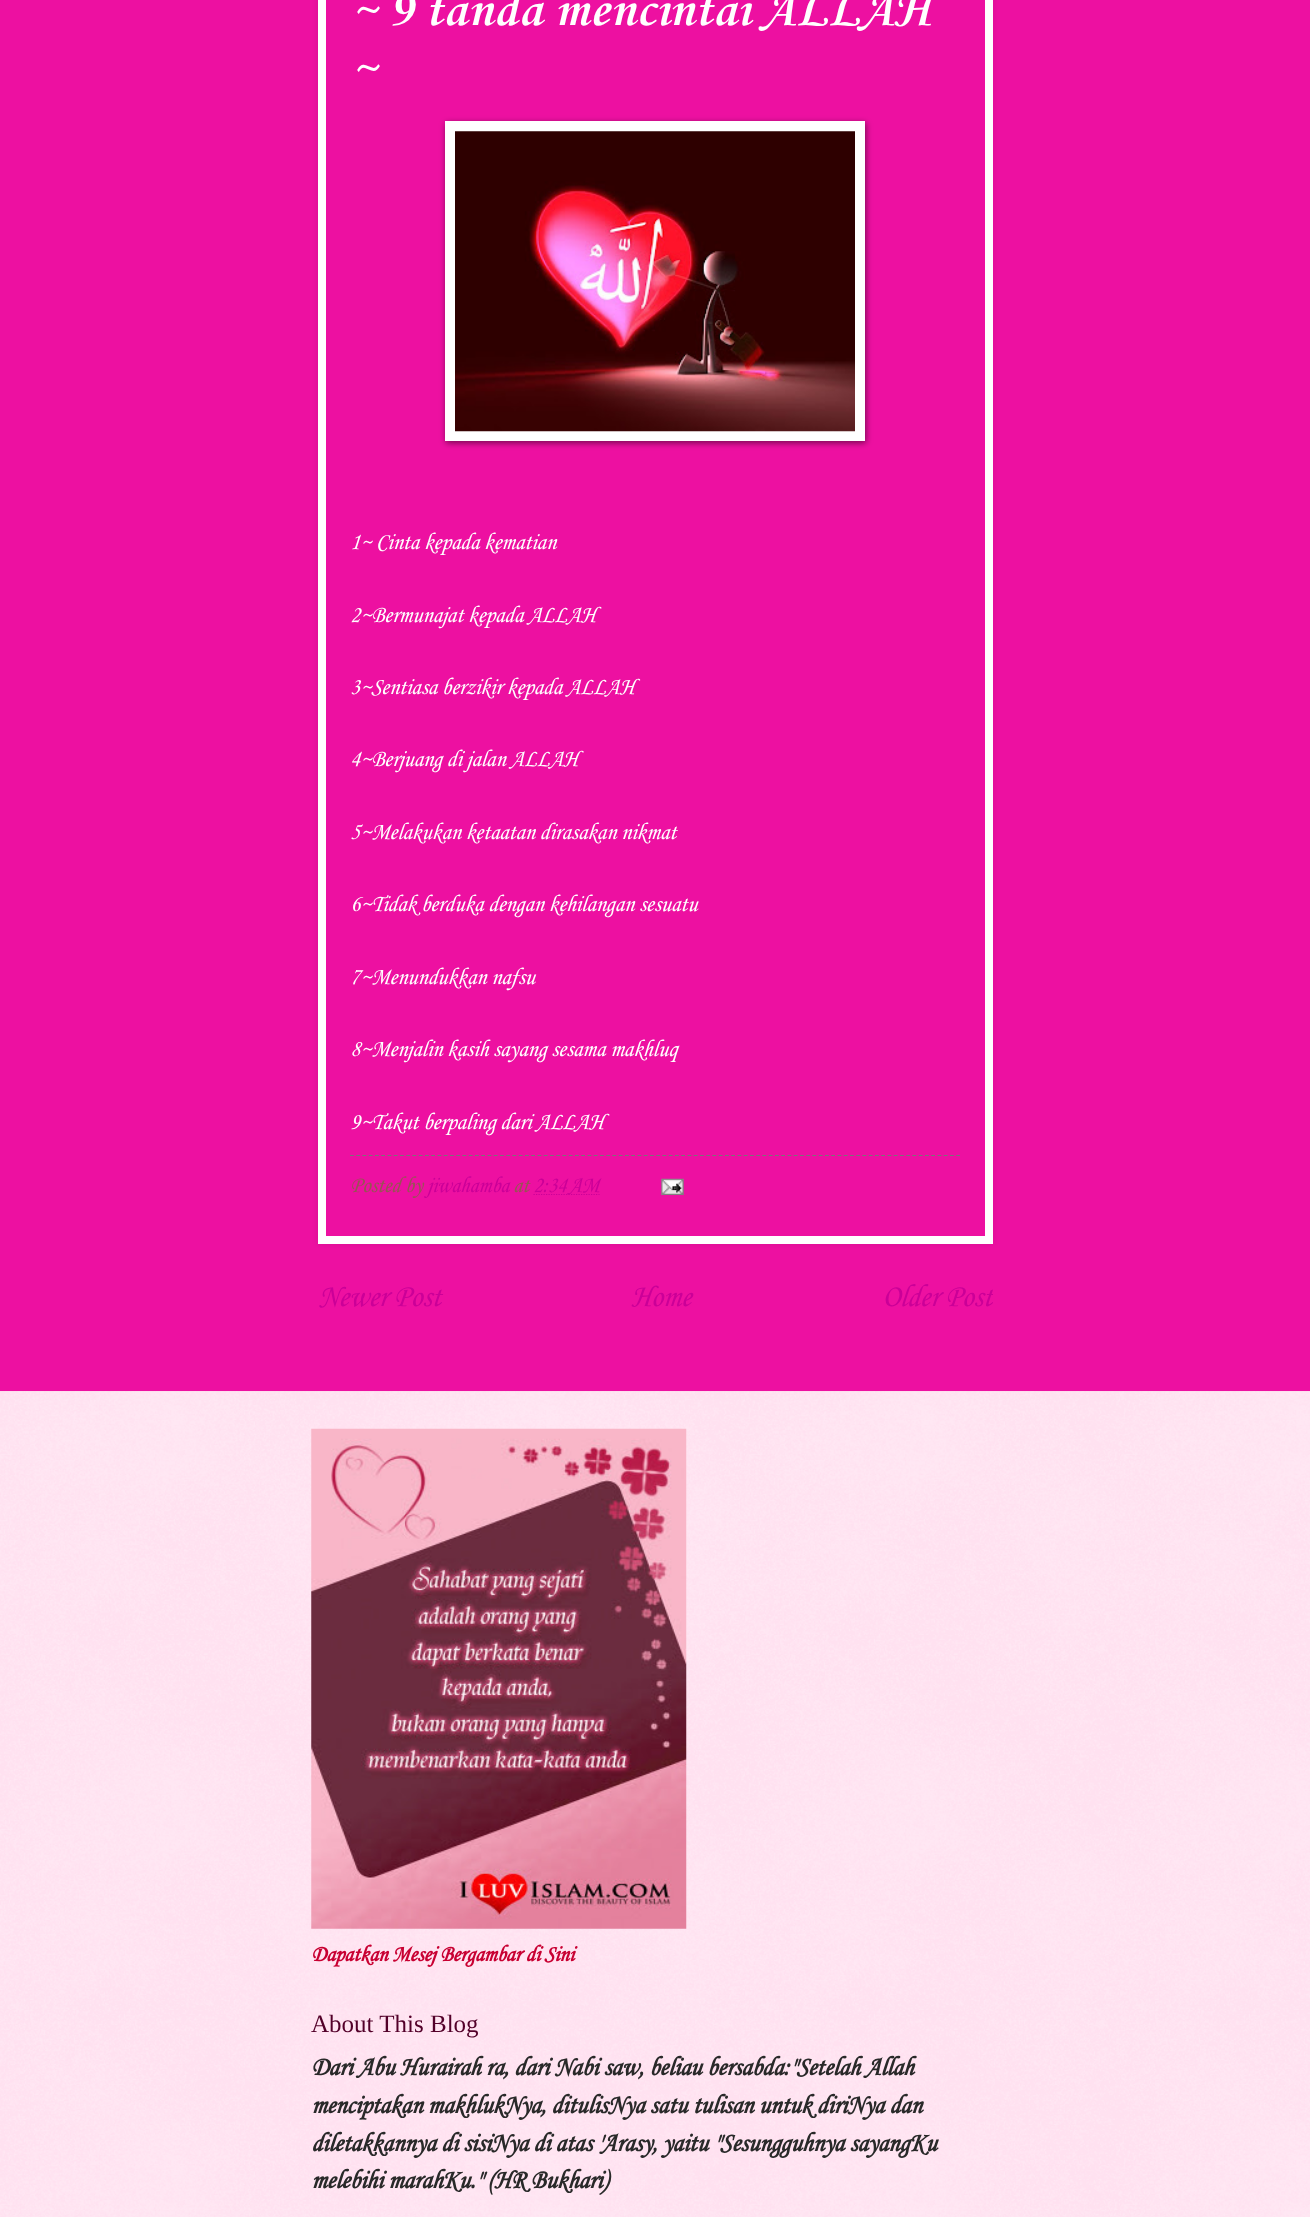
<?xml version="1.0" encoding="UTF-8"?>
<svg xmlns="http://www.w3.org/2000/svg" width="1310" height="2217">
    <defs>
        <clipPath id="clip1"><path d="M 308 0 H 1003 V 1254 H 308 Z M 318 -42 H 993 V 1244 H 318 Z" clip-rule="evenodd"/></clipPath>
        <filter id="blur1" x="-50%" y="-200%" width="200%" height="500%"><feGaussianBlur stdDeviation="3"/></filter>
        <clipPath id="clip2"><rect x="318" y="1276" width="675" height="45"/></clipPath>
    </defs>
    <rect width="100%" height="100%" fill="#ED10A1"/>
    <g clip-path="url(#clip1)">
        <rect x="318" y="-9" width="675" height="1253" fill="#000000" fill-opacity="0.1" filter="url(#blur1)"/>
    </g>
    <rect x="322" y="-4" width="667" height="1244" fill="none" stroke="#FFFFFF" stroke-width="8"/>
    <text font-family="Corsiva" font-size="52.5" font-weight="700" fill="#FFFFFF">
        <tspan x="350" y="25">~ 9 tanda mencintai ALLAH</tspan>
        <tspan x="350" y="83">~</tspan>
    </text>
    <rect x="446" y="123" width="420" height="320" fill="#000000" fill-opacity="0.5" filter="url(#blur1)"/>
    <rect x="445" y="121" width="420" height="320" fill="#FFFFFF"/>
    <image x="455" y="131" width="400" height="301" href="img_01.png"/>
    <text x="350" y="549" font-family="Corsiva" font-size="24.1" font-style="italic" fill="#FFFFFF">1~ Cinta kepada kematian</text>
    <text x="350" y="622" font-family="Corsiva" font-size="24.1" font-style="italic" fill="#FFFFFF">2~Bermunajat kepada ALLAH</text>
    <text x="350" y="694" font-family="Corsiva" font-size="24.1" font-style="italic" fill="#FFFFFF">3~Sentiasa berzikir kepada ALLAH</text>
    <text x="350" y="766" font-family="Corsiva" font-size="24.1" font-style="italic" fill="#FFFFFF">4~Berjuang di jalan ALLAH</text>
    <text x="350" y="839" font-family="Corsiva" font-size="24.1" font-style="italic" fill="#FFFFFF">5~Melakukan ketaatan dirasakan nikmat</text>
    <text x="350" y="911" font-family="Corsiva" font-size="24.1" font-style="italic" fill="#FFFFFF">6~Tidak berduka dengan kehilangan sesuatu</text>
    <text x="350" y="984" font-family="Corsiva" font-size="24.1" font-style="italic" fill="#FFFFFF">7~Menundukkan nafsu</text>
    <text x="350" y="1056" font-family="Corsiva" font-size="24.1" font-style="italic" fill="#FFFFFF">8~Menjalin kasih sayang sesama makhluq</text>
    <text x="350" y="1129" font-family="Corsiva" font-size="24.1" font-style="italic" fill="#FFFFFF">9~Takut berpaling dari ALLAH</text>
    <path d="M 350 1155.5 H 960" fill="none" stroke="#767676" stroke-width="1.2" stroke-dasharray="3.75 2.5"/>
    <text x="350" y="1192" font-family="Corsiva" font-size="23" font-style="italic" fill="#985454">Posted by</text>
    <text x="427" y="1192" font-family="Corsiva" font-size="23" font-style="italic" fill="#CB0098">jiwahamba</text>
    <text x="513" y="1192" font-family="Corsiva" font-size="23" font-style="italic" fill="#985454">at</text>
    <path d="M 533.5 1194.5 H 599.5" fill="none" stroke="#CB0098" stroke-width="1.2" stroke-dasharray="1.25 1.25"/>
    <text x="533" y="1192" font-family="Corsiva" font-size="23" font-style="italic" fill="#CB0098">2:34 AM</text>
    <image x="661" y="1178" width="23" height="17" href="img_02.png"/>
    <text x="318" y="1306" font-family="Corsiva" font-size="32" font-style="italic" fill="#CB0098">Newer Post</text>
    <text x="631" y="1306" font-family="Corsiva" font-size="32" font-style="italic" fill="#CB0098">Home</text>
    <g clip-path="url(#clip2)">
        <text x="882" y="1306" font-family="Corsiva" font-size="32" font-style="italic" fill="#CB0098">Older Post</text>
    </g>
    <rect x="0" y="1391" width="1310" height="826" fill="#FFCBE5"/>
    <image x="0" y="1391" width="1310" height="826" href="img_03.png"/>
    <image x="311" y="1428" width="376" height="501" href="img_04.png"/>
    <text x="311" y="1961" font-family="Corsiva" font-size="23" font-weight="700" font-style="italic" fill="#C80032">Dapatkan Mesej Bergambar di Sini</text>
    <text x="311" y="2032" font-family="Liberation Serif" font-size="25" fill="#530029">About This Blog</text>
    <text font-family="Corsiva" font-size="26.9" font-weight="700" font-style="italic" fill="#292929">
        <tspan x="311" y="2075">Dari Abu Hurairah ra, dari Nabi saw, beliau bersabda:"Setelah Allah</tspan>
        <tspan x="311" y="2113">menciptakan makhlukNya, ditulisNya satu tulisan untuk diriNya dan</tspan>
        <tspan x="311" y="2151">diletakkannya di sisiNya di atas 'Arasy, yaitu "Sesungguhnya sayangKu</tspan>
        <tspan x="311" y="2188">melebihi marahKu." (HR Bukhari)</tspan>
    </text>
</svg>
